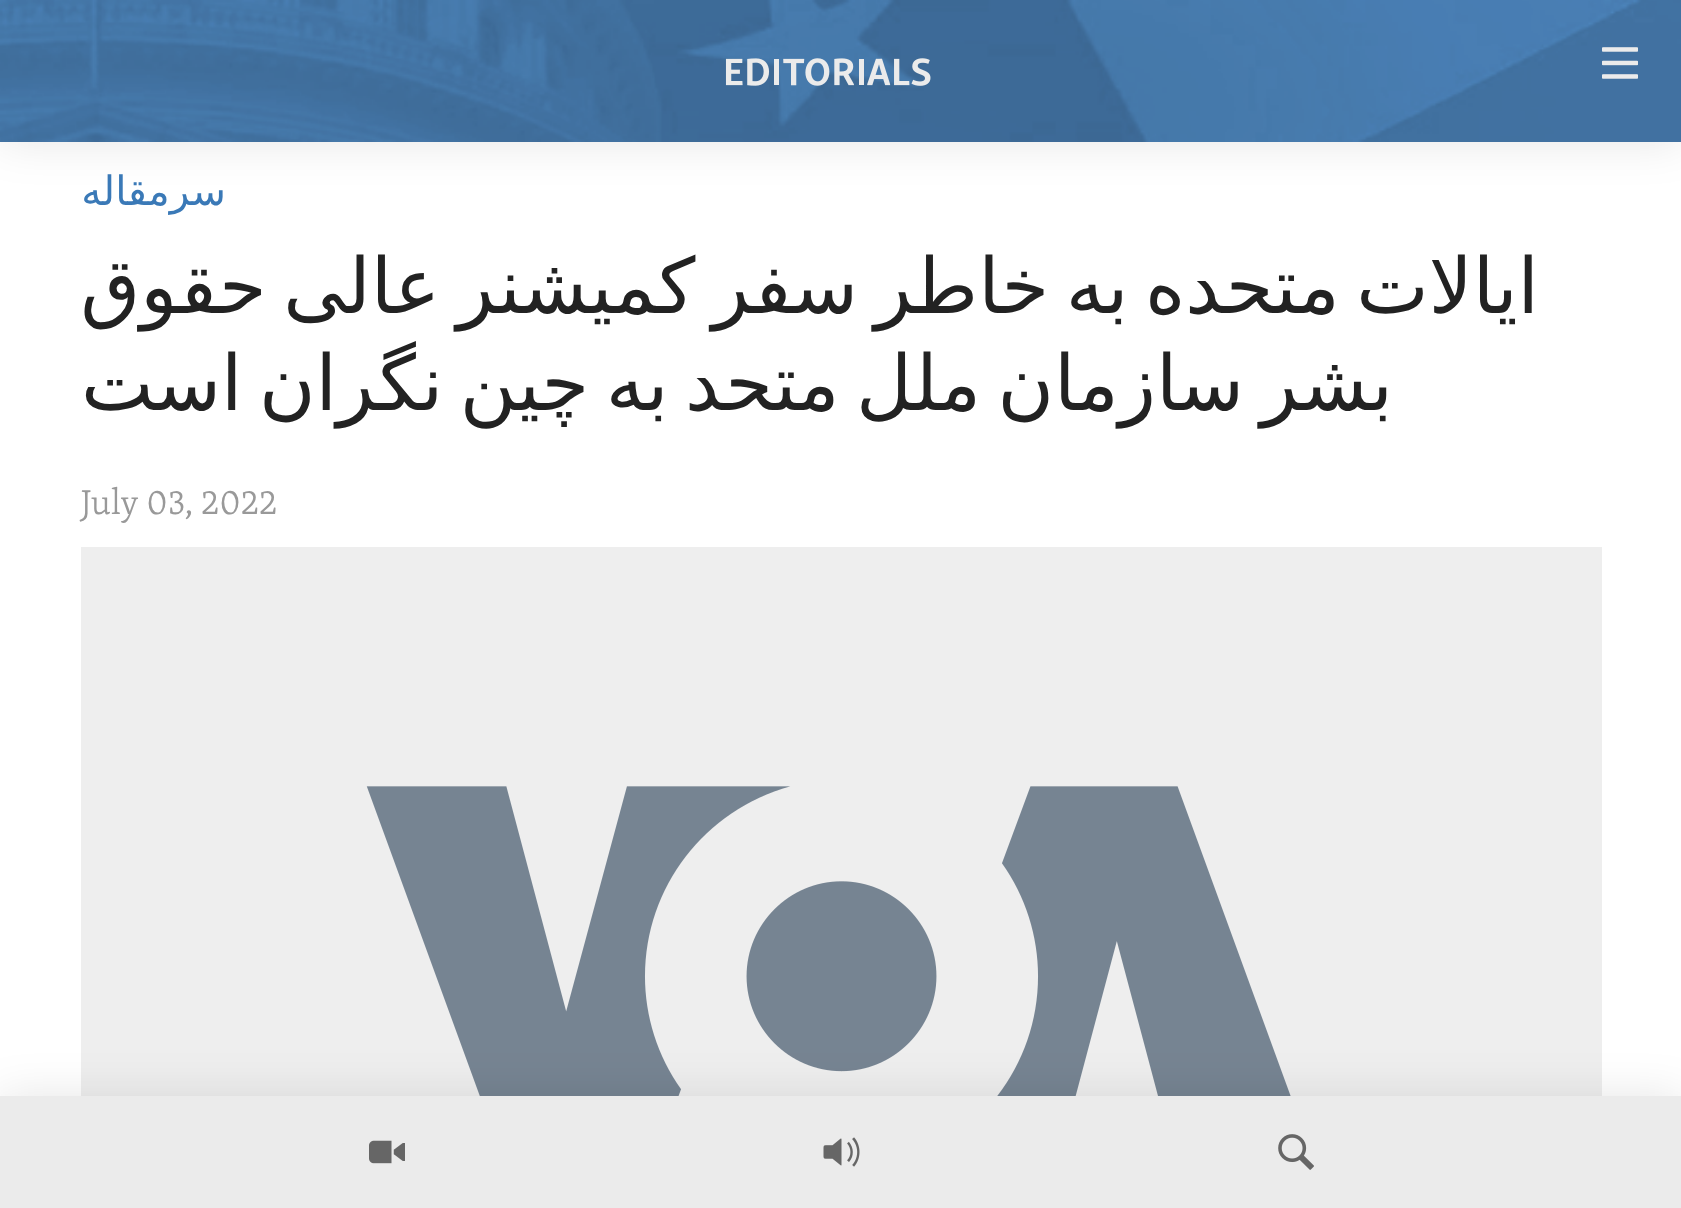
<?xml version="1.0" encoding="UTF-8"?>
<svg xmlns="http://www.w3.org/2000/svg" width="1681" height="1208">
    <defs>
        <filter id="blur1" x="-50%" y="-200%" width="200%" height="500%"><feGaussianBlur stdDeviation="22.5"/></filter>
    </defs>
    <rect width="100%" height="100%" fill="#FFFFFF"/>
    <rect x="0" y="0" width="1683" height="142" fill="#000000" fill-opacity="0.1" filter="url(#blur1)"/>
    <image x="0" y="0" width="1681" height="142" href="img_01.png"/>
    <image x="1602" y="47" width="36" height="32" href="img_02.png"/>
    <image x="725" y="58" width="206" height="28" href="img_03.png"/>
    <rect x="81" y="547" width="1521" height="549" fill="#EEEEEE"/>
    <image x="366" y="786" width="925" height="310" href="img_07.png"/>
    <rect x="0" y="1096" width="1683" height="112" fill="#000000" fill-opacity="0.1" filter="url(#blur1)"/>
    <rect x="0" y="1096" width="1681" height="112" fill="#EBEBEB"/>
    <image x="1278" y="1134" width="36" height="36" href="img_04.png"/>
    <image x="823" y="1137" width="37" height="30" href="img_05.png"/>
    <image x="369" y="1140" width="36" height="24" href="img_06.png"/>
    <text x="226" y="205" font-family="DejaVu Sans" font-size="40.5" direction="rtl" fill="#3A79B7">سرمقاله</text>
    <text x="1539" y="313" word-spacing="-8" font-family="DejaVu Sans" font-size="77" direction="rtl" fill="#222222">ایالات متحده به خاطر سفر کمیشنر عالی حقوق</text>
    <text x="1393" y="410" word-spacing="-8" font-family="DejaVu Sans" font-size="77" direction="rtl" fill="#222222">بشر سازمان ملل متحد به چین نگران است</text>
    <text x="81" y="514" font-family="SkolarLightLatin" font-size="35.5" font-weight="300" fill="#999999">July 03, 2022</text>
</svg>
